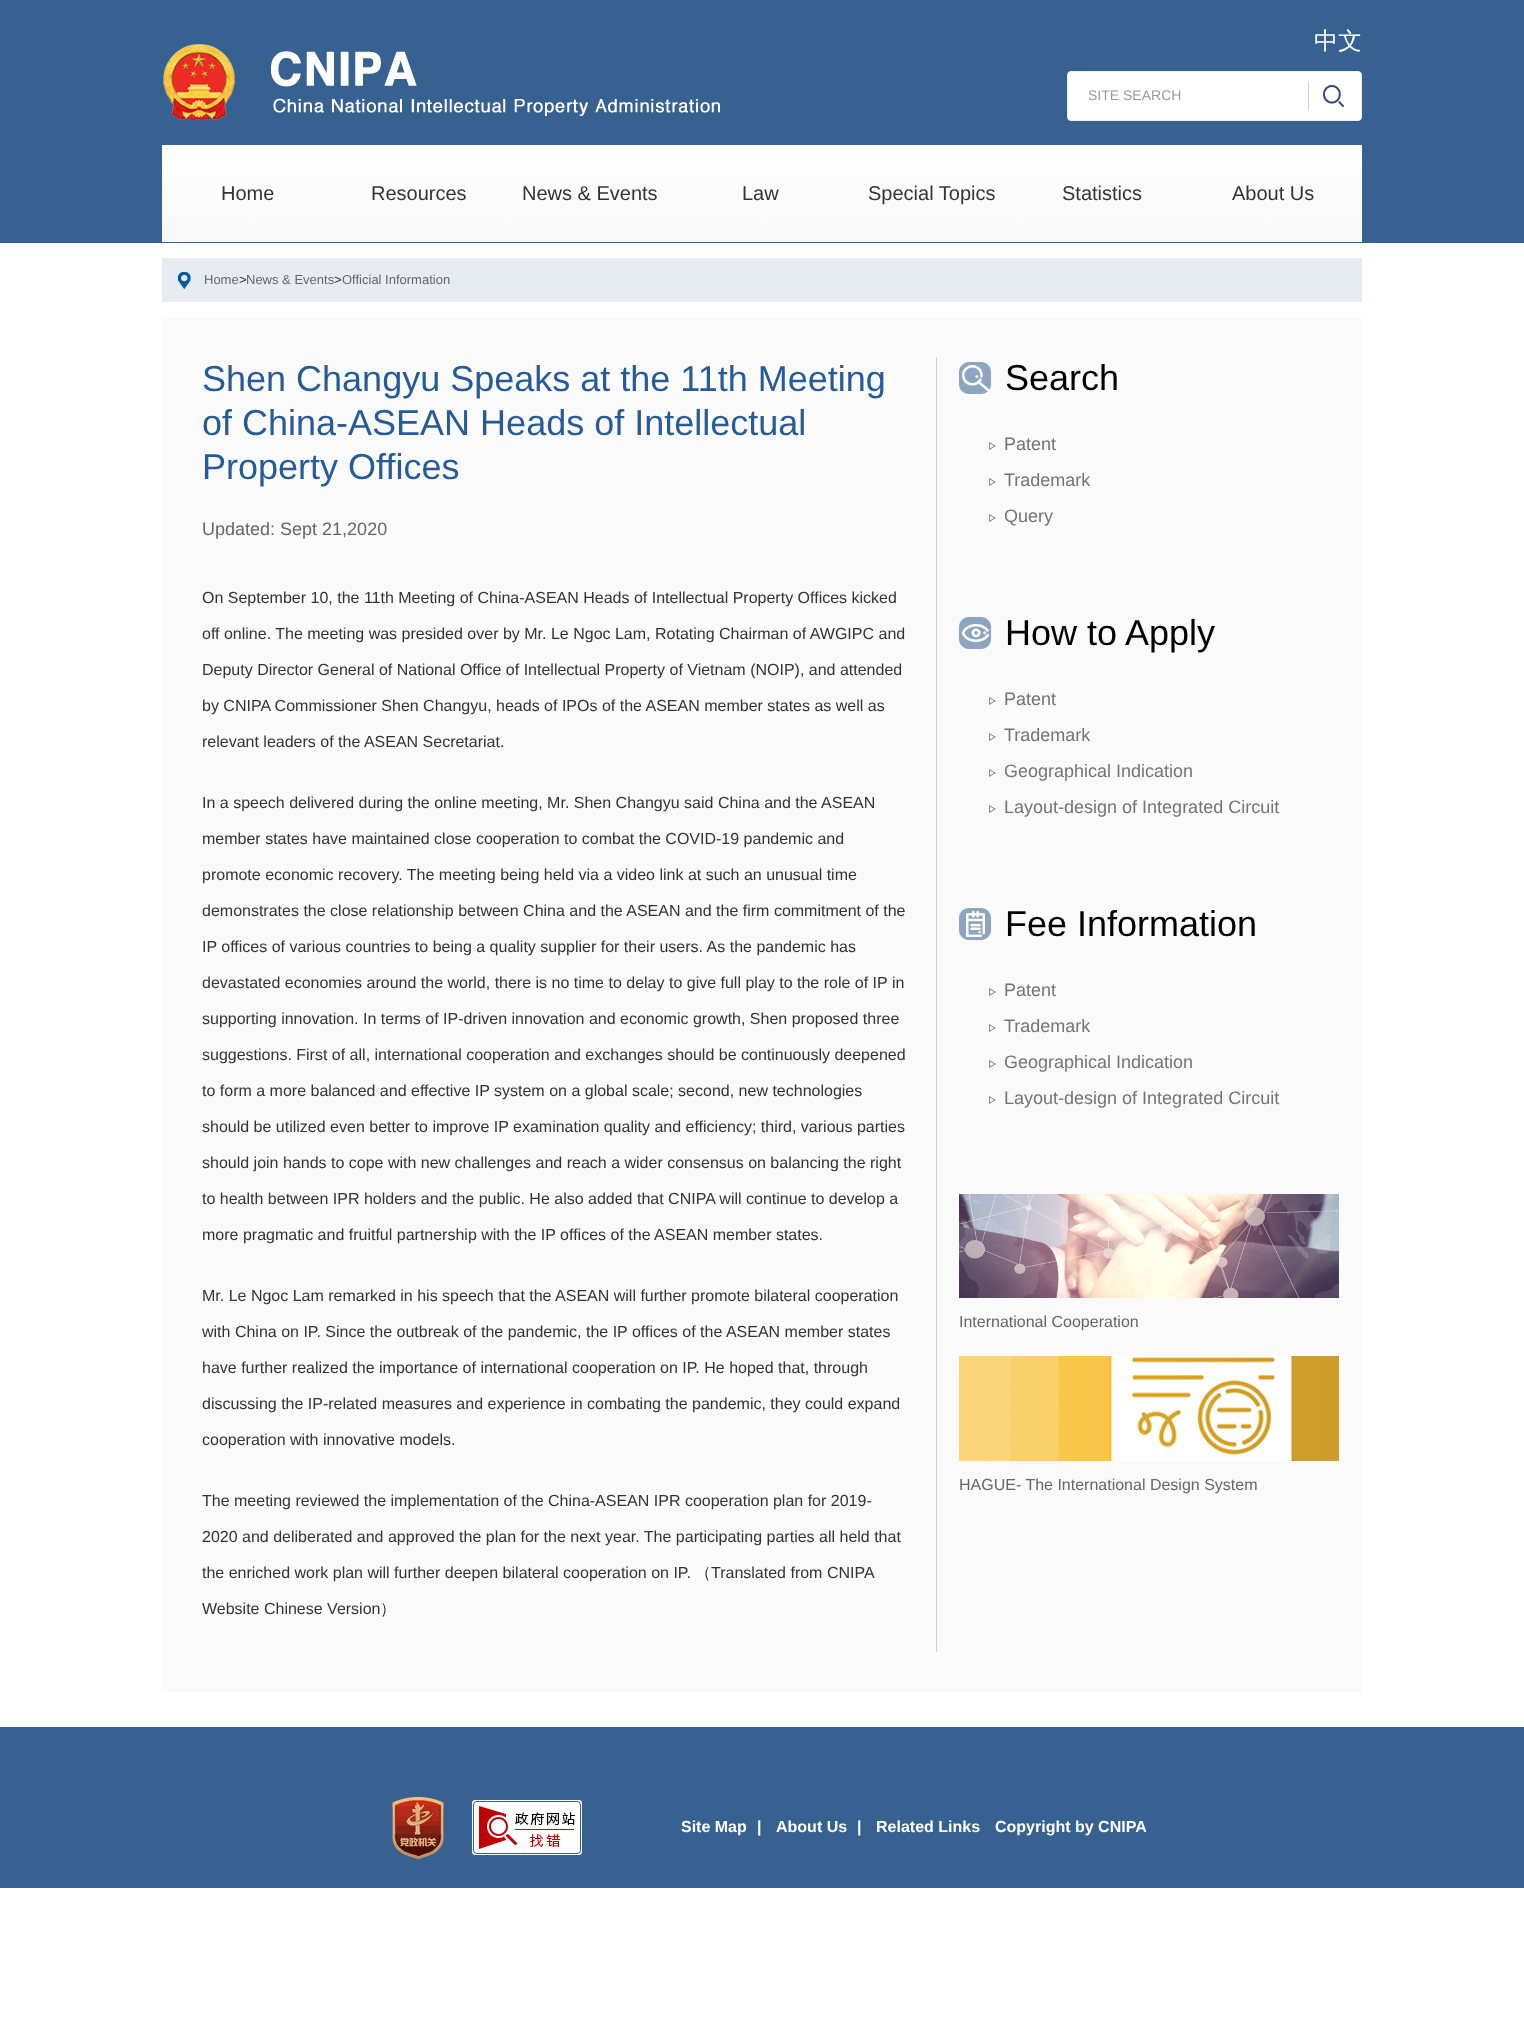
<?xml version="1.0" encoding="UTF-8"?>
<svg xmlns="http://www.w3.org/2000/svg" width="1524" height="2033">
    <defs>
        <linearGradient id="g1" gradientUnits="userSpaceOnUse" x1="762" y1="145" x2="762" y2="242"><stop offset="0" stop-color="#FFFFFF"/><stop offset="1" stop-color="#F8F8F8"/></linearGradient>
    </defs>
    <rect width="100%" height="100%" fill="#FFFFFF"/>
    <rect x="0" y="0" width="1524" height="243" fill="#376190"/>
    <image x="163" y="44" width="557" height="76" href="img_01.png"/>
    <text x="1314" y="49" font-family="WenQuanYi Zen Hei" font-size="24" font-weight="500" fill="#FFFFFF">中文</text>
    <rect x="1067.5" y="71.5" width="294" height="49" rx="3.5" fill="#FFFFFF" stroke="#EEEEEE"/>
    <text x="1088" y="100" font-family="Liberation Sans" font-size="14" fill="#999999">SITE SEARCH</text>
    <image x="1323" y="85" width="21" height="22" href="img_02.png"/>
    <rect x="1308" y="82" width="1" height="28" fill="#CCCCCC"/>
    <rect x="162" y="145" width="1200" height="97" fill="url(#g1)"/>
    <text x="221" y="200" font-family="Liberation Sans" font-size="20" fill="#333333">Home</text>
    <text x="371" y="200" font-family="Liberation Sans" font-size="20" fill="#333333">Resources</text>
    <text x="522" y="200" font-family="Liberation Sans" font-size="20" fill="#333333">News &amp; Events</text>
    <text x="742" y="200" font-family="Liberation Sans" font-size="20" fill="#333333">Law</text>
    <text x="868" y="200" font-family="Liberation Sans" font-size="20" fill="#333333">Special Topics</text>
    <text x="1062" y="200" font-family="Liberation Sans" font-size="20" fill="#333333">Statistics</text>
    <text x="1232" y="200" font-family="Liberation Sans" font-size="20" fill="#333333">About Us</text>
    <rect x="162" y="258" width="1200" height="44" fill="#E7ECF2"/>
    <image x="177" y="271" width="14" height="18" href="img_03.png"/>
    <text x="204" y="284" font-family="Liberation Sans" font-size="13" fill="#666666">Home</text>
    <text x="239" y="284" font-family="Liberation Sans" font-size="13" fill="#333333">&gt;</text>
    <text x="246" y="284" font-family="Liberation Sans" font-size="13" fill="#666666">News &amp; Events</text>
    <text x="334" y="284" font-family="Liberation Sans" font-size="13" fill="#333333">&gt;</text>
    <text x="342" y="284" font-family="Liberation Sans" font-size="13" fill="#666666">Official Information</text>
    <rect x="162" y="317" width="1200" height="1375" fill="#FAFAFA"/>
    <rect x="936" y="357" width="1" height="1295" fill="#CECECE"/>
    <text font-family="Liberation Sans" font-size="36" fill="#265B97">
        <tspan x="202" y="391">Shen Changyu Speaks at the 11th Meeting</tspan>
        <tspan x="202" y="435">of China-ASEAN Heads of Intellectual</tspan>
        <tspan x="202" y="479">Property Offices</tspan>
    </text>
    <text x="202" y="535" font-family="Liberation Sans" font-size="18" fill="#666666">Updated: Sept 21,2020</text>
    <text x="202" y="603" font-family="Liberation Sans" font-size="16" fill="#333333">On September 10, the 11th Meeting of China-ASEAN Heads of Intellectual Property Offices kicked</text>
    <text x="202" y="639" font-family="Liberation Sans" font-size="16" fill="#333333">off online. The meeting was presided over by Mr. Le Ngoc Lam, Rotating Chairman of AWGIPC and</text>
    <text x="202" y="675" font-family="Liberation Sans" font-size="16" fill="#333333">Deputy Director General of National Office of Intellectual Property of Vietnam (NOIP), and attended</text>
    <text x="202" y="711" font-family="Liberation Sans" font-size="16" fill="#333333">by CNIPA Commissioner Shen Changyu, heads of IPOs of the ASEAN member states as well as</text>
    <text x="202" y="747" font-family="Liberation Sans" font-size="16" fill="#333333">relevant leaders of the ASEAN Secretariat.</text>
    <text x="202" y="808" font-family="Liberation Sans" font-size="16" fill="#333333">In a speech delivered during the online meeting, Mr. Shen Changyu said China and the ASEAN</text>
    <text x="202" y="844" font-family="Liberation Sans" font-size="16" fill="#333333">member states have maintained close cooperation to combat the COVID-19 pandemic and</text>
    <text x="202" y="880" font-family="Liberation Sans" font-size="16" fill="#333333">promote economic recovery. The meeting being held via a video link at such an unusual time</text>
    <text x="202" y="916" font-family="Liberation Sans" font-size="16" fill="#333333">demonstrates the close relationship between China and the ASEAN and the firm commitment of the</text>
    <text x="202" y="952" font-family="Liberation Sans" font-size="16" fill="#333333">IP offices of various countries to being a quality supplier for their users. As the pandemic has</text>
    <text x="202" y="988" font-family="Liberation Sans" font-size="16" fill="#333333">devastated economies around the world, there is no time to delay to give full play to the role of IP in</text>
    <text x="202" y="1024" font-family="Liberation Sans" font-size="16" fill="#333333">supporting innovation. In terms of IP-driven innovation and economic growth, Shen proposed three</text>
    <text x="202" y="1060" font-family="Liberation Sans" font-size="16" fill="#333333">suggestions. First of all, international cooperation and exchanges should be continuously deepened</text>
    <text x="202" y="1096" font-family="Liberation Sans" font-size="16" fill="#333333">to form a more balanced and effective IP system on a global scale; second, new technologies</text>
    <text x="202" y="1132" font-family="Liberation Sans" font-size="16" fill="#333333">should be utilized even better to improve IP examination quality and efficiency; third, various parties</text>
    <text x="202" y="1168" font-family="Liberation Sans" font-size="16" fill="#333333">should join hands to cope with new challenges and reach a wider consensus on balancing the right</text>
    <text x="202" y="1204" font-family="Liberation Sans" font-size="16" fill="#333333">to health between IPR holders and the public. He also added that CNIPA will continue to develop a</text>
    <text x="202" y="1240" font-family="Liberation Sans" font-size="16" fill="#333333">more pragmatic and fruitful partnership with the IP offices of the ASEAN member states.</text>
    <text x="202" y="1301" font-family="Liberation Sans" font-size="16" fill="#333333">Mr. Le Ngoc Lam remarked in his speech that the ASEAN will further promote bilateral cooperation</text>
    <text x="202" y="1337" font-family="Liberation Sans" font-size="16" fill="#333333">with China on IP. Since the outbreak of the pandemic, the IP offices of the ASEAN member states</text>
    <text x="202" y="1373" font-family="Liberation Sans" font-size="16" fill="#333333">have further realized the importance of international cooperation on IP. He hoped that, through</text>
    <text x="202" y="1409" font-family="Liberation Sans" font-size="16" fill="#333333">discussing the IP-related measures and experience in combating the pandemic, they could expand</text>
    <text x="202" y="1445" font-family="Liberation Sans" font-size="16" fill="#333333">cooperation with innovative models.</text>
    <text x="202" y="1506" font-family="Liberation Sans" font-size="16" fill="#333333">The meeting reviewed the implementation of the China-ASEAN IPR cooperation plan for 2019-</text>
    <text x="202" y="1542" font-family="Liberation Sans" font-size="16" fill="#333333">2020 and deliberated and approved the plan for the next year. The participating parties all held that</text>
    <text x="202" y="1578" font-family="Liberation Sans" font-size="16" fill="#333333">the enriched work plan will further deepen bilateral cooperation on IP.</text>
    <text x="695" y="1578" font-family="WenQuanYi Zen Hei" font-size="16" font-weight="500" fill="#333333">（</text>
    <text x="711" y="1578" font-family="Liberation Sans" font-size="16" fill="#333333">Translated from CNIPA</text>
    <text x="202" y="1614" font-family="Liberation Sans" font-size="16" fill="#333333">Website Chinese Version</text>
    <text x="380" y="1614" font-family="WenQuanYi Zen Hei" font-size="16" font-weight="500" fill="#333333">）</text>
    <image x="959" y="362" width="32" height="32" href="img_04.png"/>
    <text x="1005" y="390" font-family="Liberation Sans" font-size="36" fill="#000000">Search</text>
    <image x="989" y="442" width="7" height="8" href="img_05.png"/>
    <text x="1004" y="450" font-family="Liberation Sans" font-size="18" fill="#747474">Patent</text>
    <image x="989" y="478" width="7" height="8" href="img_05.png"/>
    <text x="1004" y="486" font-family="Liberation Sans" font-size="18" fill="#747474">Trademark</text>
    <image x="989" y="514" width="7" height="8" href="img_05.png"/>
    <text x="1004" y="522" font-family="Liberation Sans" font-size="18" fill="#747474">Query</text>
    <image x="959" y="617" width="32" height="32" href="img_06.png"/>
    <text x="1005" y="645" font-family="Liberation Sans" font-size="36" fill="#000000">How to Apply</text>
    <image x="989" y="697" width="7" height="8" href="img_05.png"/>
    <text x="1004" y="705" font-family="Liberation Sans" font-size="18" fill="#747474">Patent</text>
    <image x="989" y="733" width="7" height="8" href="img_05.png"/>
    <text x="1004" y="741" font-family="Liberation Sans" font-size="18" fill="#747474">Trademark</text>
    <image x="989" y="769" width="7" height="8" href="img_05.png"/>
    <text x="1004" y="777" font-family="Liberation Sans" font-size="18" fill="#747474">Geographical Indication</text>
    <image x="989" y="805" width="7" height="8" href="img_05.png"/>
    <text x="1004" y="813" font-family="Liberation Sans" font-size="18" fill="#747474">Layout-design of Integrated Circuit</text>
    <image x="959" y="908" width="32" height="32" href="img_07.png"/>
    <text x="1005" y="936" font-family="Liberation Sans" font-size="36" fill="#000000">Fee Information</text>
    <image x="989" y="988" width="7" height="8" href="img_05.png"/>
    <text x="1004" y="996" font-family="Liberation Sans" font-size="18" fill="#747474">Patent</text>
    <image x="989" y="1024" width="7" height="8" href="img_05.png"/>
    <text x="1004" y="1032" font-family="Liberation Sans" font-size="18" fill="#747474">Trademark</text>
    <image x="989" y="1060" width="7" height="8" href="img_05.png"/>
    <text x="1004" y="1068" font-family="Liberation Sans" font-size="18" fill="#747474">Geographical Indication</text>
    <image x="989" y="1096" width="7" height="8" href="img_05.png"/>
    <text x="1004" y="1104" font-family="Liberation Sans" font-size="18" fill="#747474">Layout-design of Integrated Circuit</text>
    <image x="959" y="1194" width="380" height="104" href="img_08.png"/>
    <text x="959" y="1327" font-family="Liberation Sans" font-size="16" fill="#666666">International Cooperation</text>
    <image x="959" y="1356" width="380" height="105" href="img_09.png"/>
    <text x="959" y="1490" font-family="Liberation Sans" font-size="16" fill="#666666">HAGUE- The International Design System</text>
    <rect x="0" y="1727" width="1524" height="161" fill="#376190"/>
    <image x="392" y="1796" width="52" height="64" href="img_10.png"/>
    <image x="472" y="1800" width="110" height="55" href="img_11.png"/>
    <text x="681" y="1832" font-family="Liberation Sans" font-size="16" font-weight="700" fill="#FFFFFF">Site Map</text>
    <text x="757" y="1832" font-family="Liberation Sans" font-size="16" font-weight="700" fill="#FFFFFF">|</text>
    <text x="776" y="1832" font-family="Liberation Sans" font-size="16" font-weight="700" fill="#FFFFFF">About Us</text>
    <text x="857" y="1832" font-family="Liberation Sans" font-size="16" font-weight="700" fill="#FFFFFF">|</text>
    <text x="876" y="1832" font-family="Liberation Sans" font-size="16" font-weight="700" fill="#FFFFFF">Related Links</text>
    <text x="995" y="1832" font-family="Liberation Sans" font-size="16" font-weight="700" fill="#FFFFFF">Copyright by CNIPA</text>
</svg>
